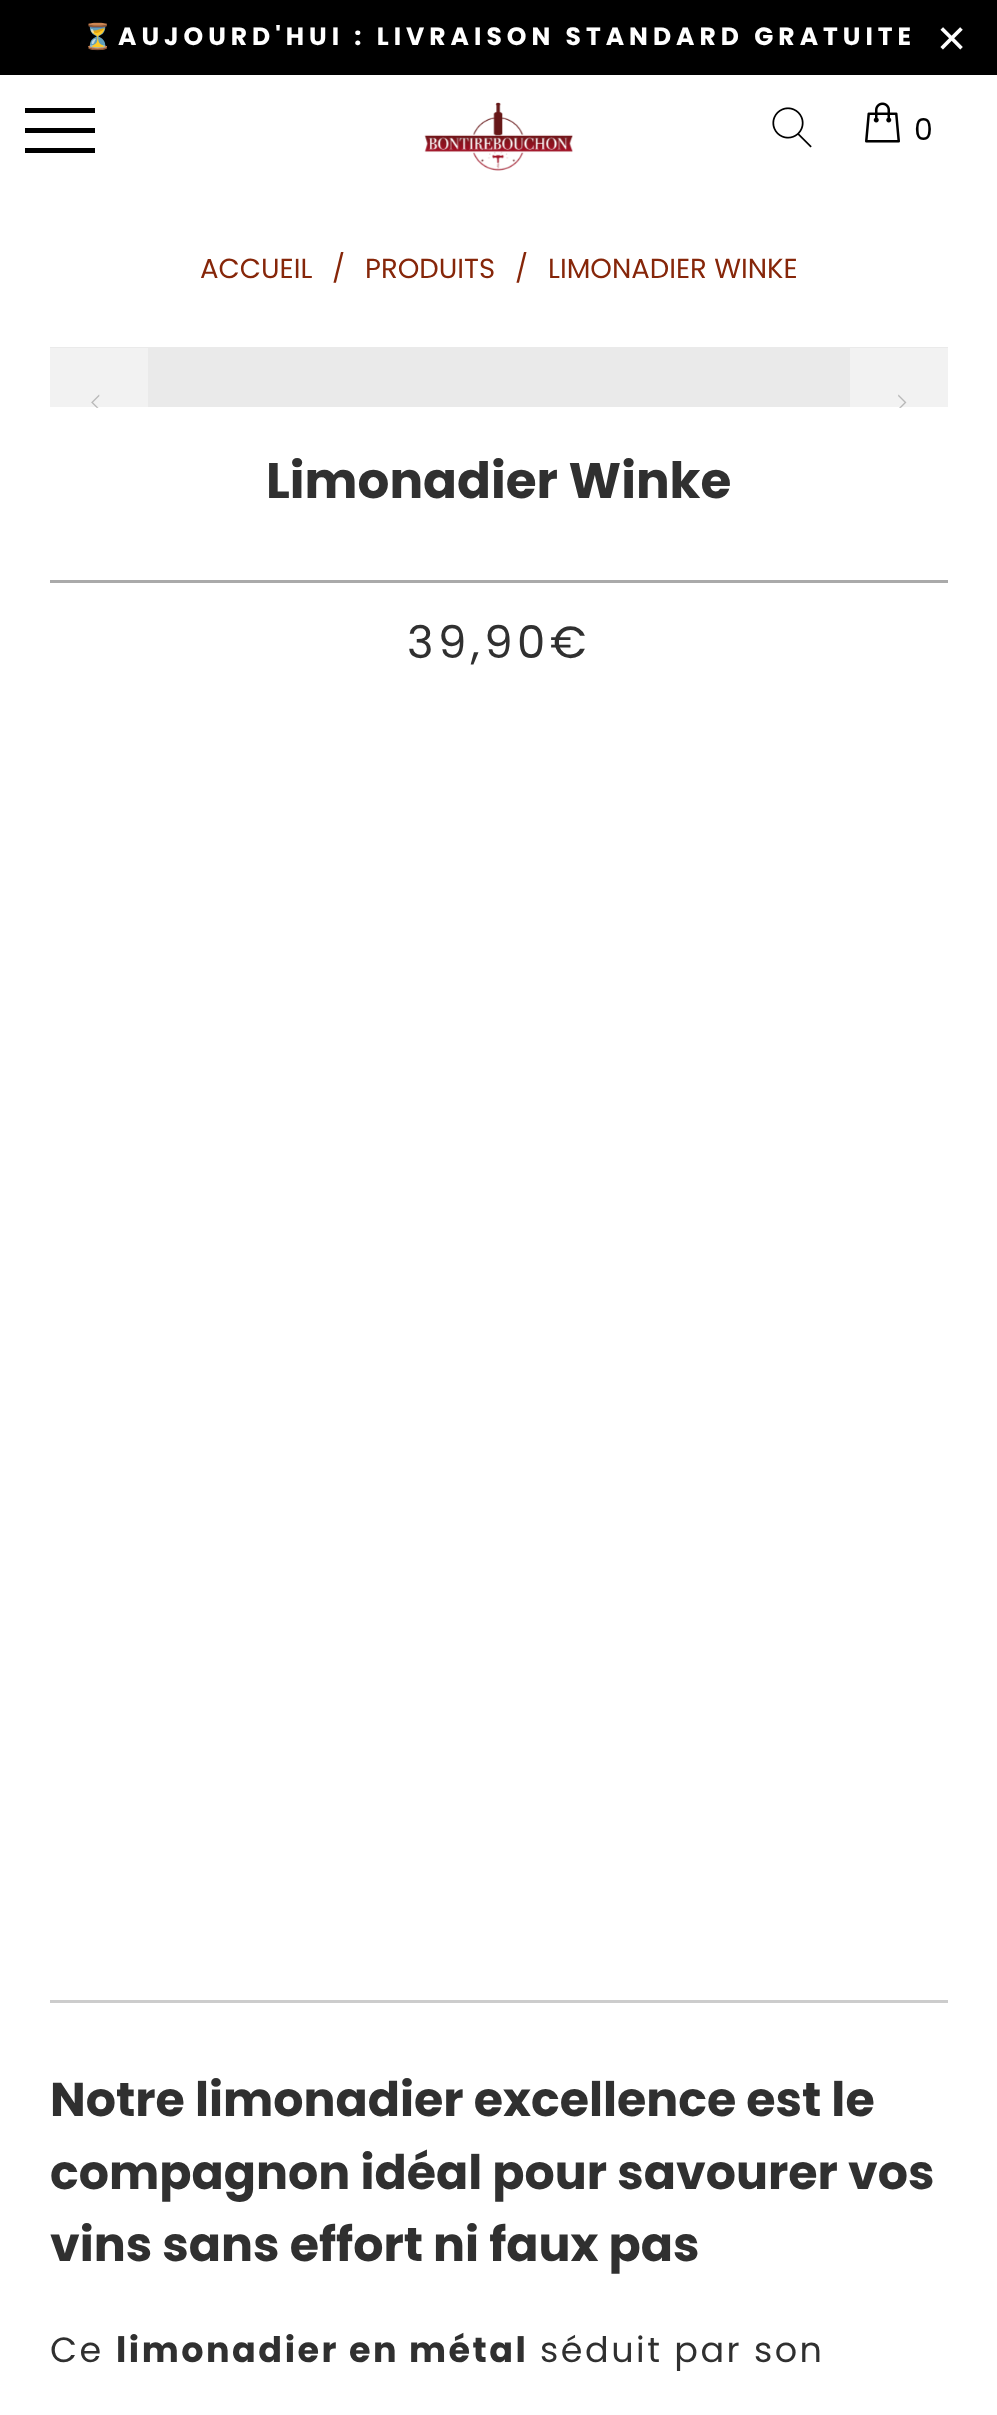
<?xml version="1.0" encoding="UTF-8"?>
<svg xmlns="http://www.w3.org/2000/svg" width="997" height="2415">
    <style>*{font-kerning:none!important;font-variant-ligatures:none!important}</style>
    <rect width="100%" height="100%" fill="#FFFFFF"/>
    <rect x="0" y="0" width="997" height="75" fill="#000000"/>
    <text x="82" y="45" font-family="Noto Color Emoji" font-size="25" font-weight="700" letter-spacing="5" fill="#FFFFFF">⏳</text>
    <text x="118" y="45" font-family="Poppins" font-size="25" font-weight="700" letter-spacing="5" fill="#FFFFFF">AUJOURD'HUI : LIVRAISON STANDARD GRATUITE</text>
    <text x="937" y="55" font-family="Liberation Sans" font-size="50" letter-spacing="5" fill="#FFFFFF">×</text>
    <rect x="25" y="108" width="70" height="5" fill="#000000"/>
    <rect x="25" y="128" width="70" height="5" fill="#000000"/>
    <rect x="25" y="148" width="70" height="5" fill="#000000"/>
    <image x="424" y="102" width="149" height="69" href="img_01.png"/>
    <image x="772" y="107" width="40" height="41" href="img_02.png"/>
    <image x="865" y="102" width="35" height="41" href="img_03.png"/>
    <text x="914" y="140" font-family="Poppins" font-size="30" letter-spacing="2.5" fill="#000000">0</text>
    <text x="200" y="278" font-family="Poppins" font-size="27.5" fill="#862609">ACCUEIL</text>
    <text x="332" y="278" font-family="Poppins" font-size="27.5" fill="#862609">/</text>
    <text x="365" y="278" font-family="Poppins" font-size="27.5" fill="#862609">PRODUITS</text>
    <text x="515" y="278" font-family="Poppins" font-size="27.5" fill="#862609">/</text>
    <text x="548" y="278" font-family="Poppins" font-size="27.5" fill="#862609">LIMONADIER WINKE</text>
    <rect x="50" y="347" width="898" height="60" fill="#EAEAEA"/>
    <rect x="850" y="348" width="98" height="59" fill="#F2F2F2"/>
    <rect x="50" y="348" width="98" height="59" fill="#F2F2F2"/>
    <image x="91" y="394" width="9" height="14" href="img_04.png"/>
    <image x="898" y="394" width="9" height="14" href="img_05.png"/>
    <text x="266" y="498" font-family="Poppins" font-size="50" font-weight="700" fill="#303030">Limonadier Winke</text>
    <rect x="50" y="580" width="898" height="3" fill="#AAAAAA"/>
    <text x="407" y="658" font-family="Poppins" font-size="45" letter-spacing="4.5" fill="#303030">39,90€</text>
    <rect x="50" y="2000" width="898" height="3" fill="#CCCCCC"/>
    <text font-family="Poppins" font-size="47.5" font-weight="700" fill="#303030">
        <tspan x="50" y="2116">Notre limonadier excellence est le</tspan>
        <tspan x="50" y="2189">compagnon idéal pour savourer vos</tspan>
        <tspan x="50" y="2261">vins sans effort ni faux pas</tspan>
    </text>
    <text x="50" y="2362" font-family="Poppins" font-size="35" letter-spacing="2.5" fill="#303030">Ce</text>
    <text x="116" y="2362" font-family="Poppins" font-size="35" font-weight="700" letter-spacing="2.5" fill="#303030">limonadier en métal</text>
    <text x="540" y="2362" font-family="Poppins" font-size="35" letter-spacing="2.5" fill="#303030">séduit par son</text>
</svg>
